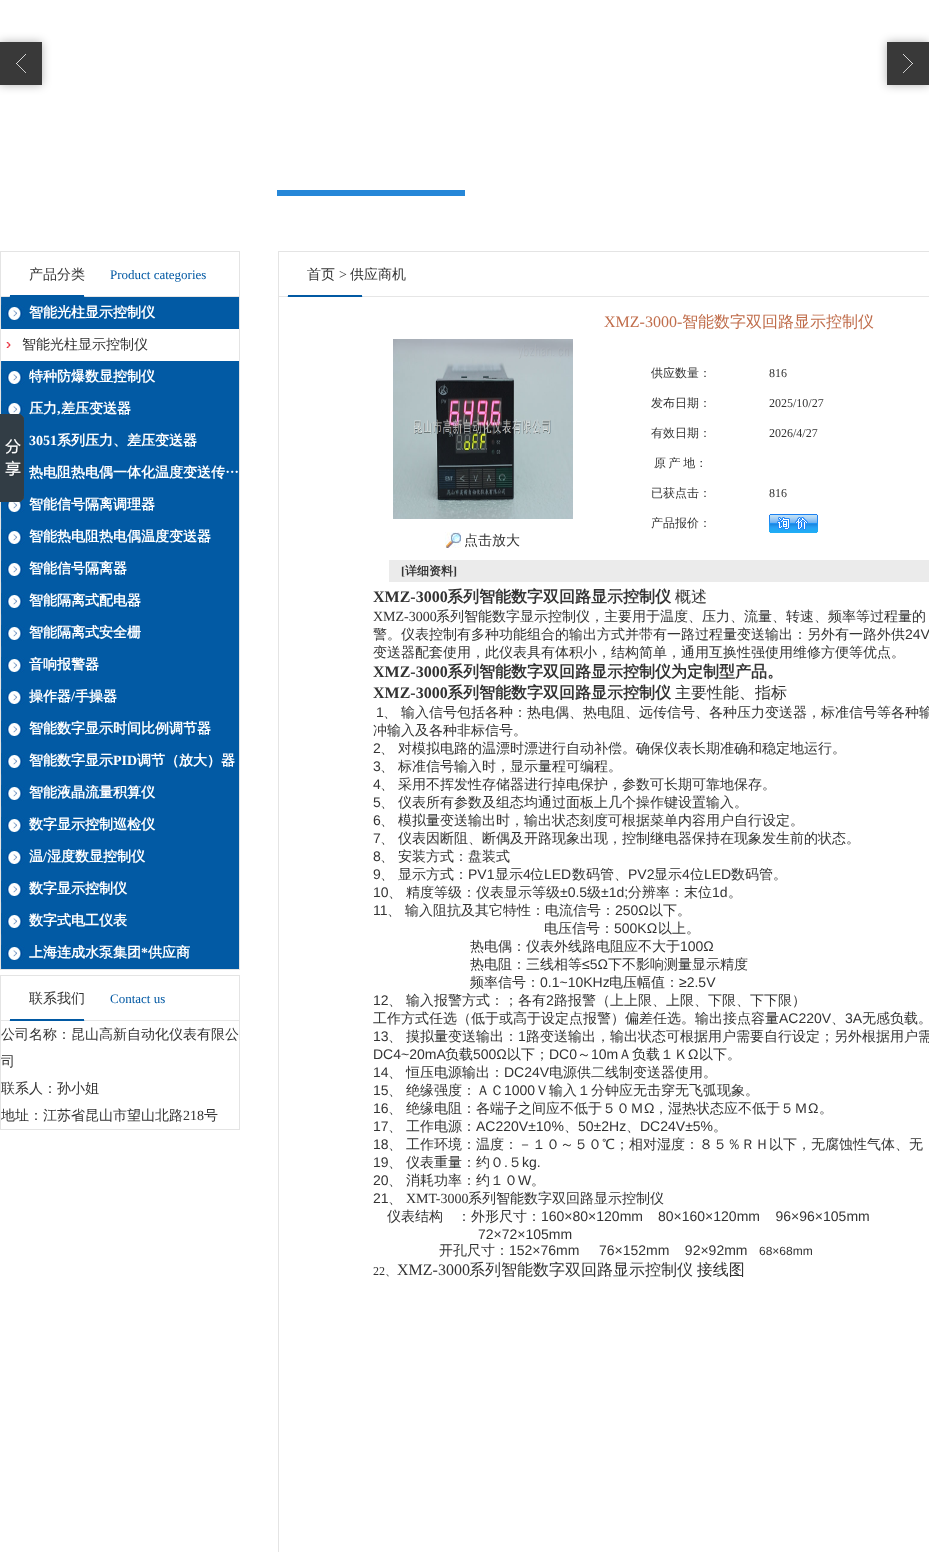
<?xml version="1.0" encoding="UTF-8"?>
<svg xmlns="http://www.w3.org/2000/svg" width="929" height="1552">
    <defs>
        <filter id="blur1" x="-50%" y="-200%" width="200%" height="500%"><feGaussianBlur stdDeviation="5"/></filter>
    </defs>
    <rect width="100%" height="100%" fill="#FFFFFF"/>
    <rect x="0" y="42" width="42" height="43" fill="#000000" fill-opacity="0.3" filter="url(#blur1)"/>
    <rect x="0" y="42" width="42" height="43" fill="#393939"/>
    <image x="16" y="54" width="10" height="19" href="img_01.png"/>
    <rect x="887" y="42" width="42" height="43" fill="#000000" fill-opacity="0.3" filter="url(#blur1)"/>
    <rect x="887" y="42" width="42" height="43" fill="#393939"/>
    <image x="903" y="54" width="10" height="19" href="img_02.png"/>
    <rect x="277" y="190" width="188" height="6" fill="#2687D8"/>
    <rect x="0.5" y="251.5" width="239" height="718" fill="none" stroke="#E4E4E4"/>
    <image x="1" y="295" width="238" height="2" href="img_03.png"/>
    <text x="29" y="279" font-family="WenQuanYi Zen Hei" font-size="14" font-weight="500" fill="#333333">产品分类</text>
    <text x="110" y="279" font-family="Liberation Serif" font-size="13" fill="#0058A3">Product categories</text>
    <image x="1" y="297" width="238" height="32" href="img_04.png"/>
    <text x="29" y="317" font-family="WenQuanYi Zen Hei" font-size="14" font-weight="700" fill="#FFFFFF">智能光柱显示控制仪</text>
    <image x="6" y="342" width="5" height="6" href="img_05.png"/>
    <text x="22" y="349" font-family="WenQuanYi Zen Hei" font-size="14" font-weight="500" fill="#333333">智能光柱显示控制仪</text>
    <image x="1" y="361" width="238" height="32" href="img_04.png"/>
    <text x="29" y="381" font-family="WenQuanYi Zen Hei" font-size="14" font-weight="700" fill="#FFFFFF">特种防爆数显控制仪</text>
    <image x="1" y="393" width="238" height="32" href="img_04.png"/>
    <text x="29" y="413" font-family="WenQuanYi Zen Hei" font-size="14" font-weight="700" fill="#FFFFFF">压力</text>
    <text x="57" y="413" font-family="Liberation Serif" font-size="14" font-weight="700" fill="#FFFFFF">,</text>
    <text x="61" y="413" font-family="WenQuanYi Zen Hei" font-size="14" font-weight="700" fill="#FFFFFF">差压变送器</text>
    <image x="24" y="425" width="215" height="32" href="img_06.png"/>
    <text x="29" y="445" font-family="Liberation Serif" font-size="14" font-weight="700" fill="#FFFFFF">3051</text>
    <text x="57" y="445" font-family="WenQuanYi Zen Hei" font-size="14" font-weight="700" fill="#FFFFFF">系列压力、差压变送器</text>
    <image x="24" y="457" width="215" height="32" href="img_06.png"/>
    <text x="29" y="477" font-family="WenQuanYi Zen Hei" font-size="14" font-weight="700" fill="#FFFFFF">热电阻热电偶一体化温度变送传…</text>
    <image x="1" y="489" width="238" height="32" href="img_04.png"/>
    <text x="29" y="509" font-family="WenQuanYi Zen Hei" font-size="14" font-weight="700" fill="#FFFFFF">智能信号隔离调理器</text>
    <image x="1" y="521" width="238" height="32" href="img_04.png"/>
    <text x="29" y="541" font-family="WenQuanYi Zen Hei" font-size="14" font-weight="700" fill="#FFFFFF">智能热电阻热电偶温度变送器</text>
    <image x="1" y="553" width="238" height="32" href="img_04.png"/>
    <text x="29" y="573" font-family="WenQuanYi Zen Hei" font-size="14" font-weight="700" fill="#FFFFFF">智能信号隔离器</text>
    <image x="1" y="585" width="238" height="32" href="img_04.png"/>
    <text x="29" y="605" font-family="WenQuanYi Zen Hei" font-size="14" font-weight="700" fill="#FFFFFF">智能隔离式配电器</text>
    <image x="1" y="617" width="238" height="32" href="img_04.png"/>
    <text x="29" y="637" font-family="WenQuanYi Zen Hei" font-size="14" font-weight="700" fill="#FFFFFF">智能隔离式安全栅</text>
    <image x="1" y="649" width="238" height="32" href="img_04.png"/>
    <text x="29" y="669" font-family="WenQuanYi Zen Hei" font-size="14" font-weight="700" fill="#FFFFFF">音响报警器</text>
    <image x="1" y="681" width="238" height="32" href="img_04.png"/>
    <text x="29" y="701" font-family="WenQuanYi Zen Hei" font-size="14" font-weight="700" fill="#FFFFFF">操作器</text>
    <text x="71" y="701" font-family="Liberation Serif" font-size="14" font-weight="700" fill="#FFFFFF">/</text>
    <text x="75" y="701" font-family="WenQuanYi Zen Hei" font-size="14" font-weight="700" fill="#FFFFFF">手操器</text>
    <image x="1" y="713" width="238" height="32" href="img_04.png"/>
    <text x="29" y="733" font-family="WenQuanYi Zen Hei" font-size="14" font-weight="700" fill="#FFFFFF">智能数字显示时间比例调节器</text>
    <image x="1" y="745" width="238" height="32" href="img_04.png"/>
    <text x="29" y="765" font-family="WenQuanYi Zen Hei" font-size="14" font-weight="700" fill="#FFFFFF">智能数字显示</text>
    <text x="113" y="765" font-family="Liberation Serif" font-size="14" font-weight="700" fill="#FFFFFF">PID</text>
    <text x="137" y="765" font-family="WenQuanYi Zen Hei" font-size="14" font-weight="700" fill="#FFFFFF">调节（放大）器</text>
    <image x="1" y="777" width="238" height="32" href="img_04.png"/>
    <text x="29" y="797" font-family="WenQuanYi Zen Hei" font-size="14" font-weight="700" fill="#FFFFFF">智能液晶流量积算仪</text>
    <image x="1" y="809" width="238" height="32" href="img_04.png"/>
    <text x="29" y="829" font-family="WenQuanYi Zen Hei" font-size="14" font-weight="700" fill="#FFFFFF">数字显示控制巡检仪</text>
    <image x="1" y="841" width="238" height="32" href="img_04.png"/>
    <text x="29" y="861" font-family="WenQuanYi Zen Hei" font-size="14" font-weight="700" fill="#FFFFFF">温</text>
    <text x="43" y="861" font-family="Liberation Serif" font-size="14" font-weight="700" fill="#FFFFFF">/</text>
    <text x="47" y="861" font-family="WenQuanYi Zen Hei" font-size="14" font-weight="700" fill="#FFFFFF">湿度数显控制仪</text>
    <image x="1" y="873" width="238" height="32" href="img_04.png"/>
    <text x="29" y="893" font-family="WenQuanYi Zen Hei" font-size="14" font-weight="700" fill="#FFFFFF">数字显示控制仪</text>
    <image x="1" y="905" width="238" height="32" href="img_04.png"/>
    <text x="29" y="925" font-family="WenQuanYi Zen Hei" font-size="14" font-weight="700" fill="#FFFFFF">数字式电工仪表</text>
    <image x="1" y="937" width="238" height="32" href="img_04.png"/>
    <text x="29" y="957" font-family="WenQuanYi Zen Hei" font-size="14" font-weight="700" fill="#FFFFFF">上海连成水泵集团</text>
    <text x="141" y="957" font-family="Liberation Serif" font-size="14" font-weight="700" fill="#FFFFFF">*</text>
    <text x="148" y="957" font-family="WenQuanYi Zen Hei" font-size="14" font-weight="700" fill="#FFFFFF">供应商</text>
    <rect x="0.5" y="975.5" width="239" height="154" fill="none" stroke="#E4E4E4"/>
    <image x="1" y="1019" width="238" height="2" href="img_03.png"/>
    <text x="29" y="1003" font-family="WenQuanYi Zen Hei" font-size="14" font-weight="500" fill="#333333">联系我们</text>
    <text x="110" y="1003" font-family="Liberation Serif" font-size="13" fill="#0058A3">Contact us</text>
    <text font-family="WenQuanYi Zen Hei" font-size="14" font-weight="500" fill="#333333">
        <tspan x="1" y="1039">公司名称：昆山高新自动化仪表有限公</tspan>
        <tspan x="1" y="1066">司</tspan>
        <tspan x="1" y="1093">联系人：孙小姐</tspan>
        <tspan x="1" y="1120">地址：江苏省昆山市望山北路</tspan>
    </text>
    <text x="183" y="1120" font-family="Liberation Serif" font-size="14" fill="#333333">218</text>
    <text x="204" y="1120" font-family="WenQuanYi Zen Hei" font-size="14" font-weight="500" fill="#333333">号</text>
    <rect x="278.5" y="251.5" width="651" height="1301" fill="none" stroke="#E4E4E4"/>
    <image x="279" y="295" width="650" height="2" href="img_07.png"/>
    <text x="307" y="279" font-family="WenQuanYi Zen Hei" font-size="14" font-weight="500" fill="#333333">首页</text>
    <text x="339" y="279" font-family="Liberation Serif" font-size="14" fill="#333333">&gt;</text>
    <text x="350" y="279" font-family="WenQuanYi Zen Hei" font-size="14" font-weight="500" fill="#333333">供应商机</text>
    <text x="604" y="327" font-family="Liberation Serif" font-size="16" fill="#C06D4B">XMZ-3000-</text>
    <text x="682" y="327" font-family="WenQuanYi Zen Hei" font-size="16" font-weight="500" fill="#C06D4B">智能数字双回路显示控制仪</text>
    <text x="651" y="377" font-family="WenQuanYi Zen Hei" font-size="12" font-weight="500" fill="#333333">供应数量：</text>
    <text x="769" y="377" font-family="Liberation Serif" font-size="12" fill="#333333">816</text>
    <text x="651" y="407" font-family="WenQuanYi Zen Hei" font-size="12" font-weight="500" fill="#333333">发布日期：</text>
    <text x="769" y="407" font-family="Liberation Serif" font-size="12" fill="#333333">2025/10/27</text>
    <text x="651" y="437" font-family="WenQuanYi Zen Hei" font-size="12" font-weight="500" fill="#333333">有效日期：</text>
    <text x="769" y="437" font-family="Liberation Serif" font-size="12" fill="#333333">2026/4/27</text>
    <text x="654" y="467" word-spacing="-1" font-family="WenQuanYi Zen Hei" font-size="12" font-weight="500" fill="#333333">原 产 地：</text>
    <text x="651" y="497" font-family="WenQuanYi Zen Hei" font-size="12" font-weight="500" fill="#333333">已获点击：</text>
    <text x="769" y="497" font-family="Liberation Serif" font-size="12" fill="#333333">816</text>
    <text x="651" y="527" font-family="WenQuanYi Zen Hei" font-size="12" font-weight="500" fill="#333333">产品报价：</text>
    <image x="769" y="514" width="49" height="19" href="img_08.png"/>
    <image x="393" y="339" width="180" height="180" href="img_09.png"/>
    <image x="445" y="532" width="16" height="16" href="img_10.png"/>
    <text x="464" y="545" font-family="WenQuanYi Zen Hei" font-size="14" font-weight="500" fill="#333333">点击放大</text>
    <rect x="389" y="560" width="540" height="22" fill="#EBEBEB"/>
    <text x="401" y="575" font-family="Liberation Serif" font-size="12" font-weight="700" fill="#333333">[</text>
    <text x="405" y="575" font-family="WenQuanYi Zen Hei" font-size="12" font-weight="700" fill="#333333">详细资料</text>
    <text x="453" y="575" font-family="Liberation Serif" font-size="12" font-weight="700" fill="#333333">]</text>
    <text x="373" y="602" font-family="Liberation Serif" font-size="16" font-weight="700" fill="#333333">XMZ-3000</text>
    <text x="447" y="602" font-family="WenQuanYi Zen Hei" font-size="16" font-weight="700" fill="#333333">系列智能数字双回路显示控制仪</text>
    <text x="675" y="602" font-family="WenQuanYi Zen Hei" font-size="16" font-weight="500" fill="#333333">概述</text>
    <text x="373" y="621" font-family="Liberation Serif" font-size="14" fill="#333333">XMZ-3000</text>
    <text x="436" y="621" font-family="WenQuanYi Zen Hei" font-size="14" font-weight="500" fill="#333333">系列智能数字显示控制仪，主要用于温度、压力、流量、转速、频率等过程量的</text>
    <text x="373" y="639" font-family="WenQuanYi Zen Hei" font-size="14" font-weight="500" fill="#333333">警。仪表控制有多种功能组合的输出方式并带有一路过程量变送输出：另外有一路外供</text>
    <text x="905" y="639" font-family="Liberation Sans" font-size="14" fill="#333333">24V</text>
    <text x="373" y="657" font-family="WenQuanYi Zen Hei" font-size="14" font-weight="500" fill="#333333">变送器配套使用，此仪表具有体积小，结构简单，通用互换性强使用维修方便等优点。</text>
    <text x="373" y="677" font-family="Liberation Serif" font-size="16" font-weight="700" fill="#333333">XMZ-3000</text>
    <text x="447" y="677" font-family="WenQuanYi Zen Hei" font-size="16" font-weight="700" fill="#333333">系列智能数字双回路显示控制仪为定制型产品。</text>
    <text x="373" y="698" font-family="Liberation Serif" font-size="16" font-weight="700" fill="#333333">XMZ-3000</text>
    <text x="447" y="698" font-family="WenQuanYi Zen Hei" font-size="16" font-weight="700" fill="#333333">系列智能数字双回路显示控制仪</text>
    <text x="675" y="698" font-family="WenQuanYi Zen Hei" font-size="16" font-weight="500" fill="#333333">主要性能、指标</text>
    <text x="376" y="717" font-family="Liberation Sans" font-size="14" fill="#333333">1</text>
    <text x="383" y="717" font-family="WenQuanYi Zen Hei" font-size="14" font-weight="500" fill="#333333">、</text>
    <text x="401" y="717" font-family="WenQuanYi Zen Hei" font-size="14" font-weight="500" fill="#333333">输入信号包括各种：热电偶、热电阻、远传信号、各种压力变送器，标准信号等各种输</text>
    <text x="373" y="735" font-family="WenQuanYi Zen Hei" font-size="14" font-weight="500" fill="#333333">冲输入及各种非标信号。</text>
    <text x="373" y="753" font-family="Liberation Sans" font-size="14" fill="#333333">2</text>
    <text x="380" y="753" font-family="WenQuanYi Zen Hei" font-size="14" font-weight="500" fill="#333333">、</text>
    <text x="398" y="753" font-family="WenQuanYi Zen Hei" font-size="14" font-weight="500" fill="#333333">对模拟电路的温漂时漂进行自动补偿。确保仪表长期准确和稳定地运行。</text>
    <text x="373" y="771" font-family="Liberation Sans" font-size="14" fill="#333333">3</text>
    <text x="380" y="771" font-family="WenQuanYi Zen Hei" font-size="14" font-weight="500" fill="#333333">、</text>
    <text x="398" y="771" font-family="WenQuanYi Zen Hei" font-size="14" font-weight="500" fill="#333333">标准信号输入时，显示量程可编程。</text>
    <text x="373" y="789" font-family="Liberation Sans" font-size="14" fill="#333333">4</text>
    <text x="380" y="789" font-family="WenQuanYi Zen Hei" font-size="14" font-weight="500" fill="#333333">、</text>
    <text x="398" y="789" font-family="WenQuanYi Zen Hei" font-size="14" font-weight="500" fill="#333333">采用不挥发性存储器进行掉电保护，参数可长期可靠地保存。</text>
    <text x="373" y="807" font-family="Liberation Sans" font-size="14" fill="#333333">5</text>
    <text x="380" y="807" font-family="WenQuanYi Zen Hei" font-size="14" font-weight="500" fill="#333333">、</text>
    <text x="398" y="807" font-family="WenQuanYi Zen Hei" font-size="14" font-weight="500" fill="#333333">仪表所有参数及组态均通过面板上几个操作键设置输入。</text>
    <text x="373" y="825" font-family="Liberation Sans" font-size="14" fill="#333333">6</text>
    <text x="380" y="825" font-family="WenQuanYi Zen Hei" font-size="14" font-weight="500" fill="#333333">、</text>
    <text x="398" y="825" font-family="WenQuanYi Zen Hei" font-size="14" font-weight="500" fill="#333333">模拟量变送输出时，输出状态刻度可根据菜单内容用户自行设定。</text>
    <text x="373" y="843" font-family="Liberation Sans" font-size="14" fill="#333333">7</text>
    <text x="380" y="843" font-family="WenQuanYi Zen Hei" font-size="14" font-weight="500" fill="#333333">、</text>
    <text x="398" y="843" font-family="WenQuanYi Zen Hei" font-size="14" font-weight="500" fill="#333333">仪表因断阻、断偶及开路现象出现，控制继电器保持在现象发生前的状态。</text>
    <text x="373" y="861" font-family="Liberation Sans" font-size="14" fill="#333333">8</text>
    <text x="380" y="861" font-family="WenQuanYi Zen Hei" font-size="14" font-weight="500" fill="#333333">、</text>
    <text x="398" y="861" font-family="WenQuanYi Zen Hei" font-size="14" font-weight="500" fill="#333333">安装方式：盘装式</text>
    <text x="373" y="879" font-family="Liberation Sans" font-size="14" fill="#333333">9</text>
    <text x="380" y="879" font-family="WenQuanYi Zen Hei" font-size="14" font-weight="500" fill="#333333">、</text>
    <text x="398" y="879" font-family="WenQuanYi Zen Hei" font-size="14" font-weight="500" fill="#333333">显示方式：</text>
    <text x="468" y="879" font-family="Liberation Sans" font-size="14" fill="#333333">PV1</text>
    <text x="495" y="879" font-family="WenQuanYi Zen Hei" font-size="14" font-weight="500" fill="#333333">显示</text>
    <text x="523" y="879" font-family="Liberation Sans" font-size="14" fill="#333333">4</text>
    <text x="530" y="879" font-family="WenQuanYi Zen Hei" font-size="14" font-weight="500" fill="#333333">位</text>
    <text x="544" y="879" font-family="Liberation Sans" font-size="14" fill="#333333">LED</text>
    <text x="572" y="879" font-family="WenQuanYi Zen Hei" font-size="14" font-weight="500" fill="#333333">数码管、</text>
    <text x="628" y="879" font-family="Liberation Sans" font-size="14" fill="#333333">PV2</text>
    <text x="654" y="879" font-family="WenQuanYi Zen Hei" font-size="14" font-weight="500" fill="#333333">显示</text>
    <text x="682" y="879" font-family="Liberation Sans" font-size="14" fill="#333333">4</text>
    <text x="690" y="879" font-family="WenQuanYi Zen Hei" font-size="14" font-weight="500" fill="#333333">位</text>
    <text x="704" y="879" font-family="Liberation Sans" font-size="14" fill="#333333">LED</text>
    <text x="731" y="879" font-family="WenQuanYi Zen Hei" font-size="14" font-weight="500" fill="#333333">数码管。</text>
    <text x="373" y="897" font-family="Liberation Sans" font-size="14" fill="#333333">10</text>
    <text x="388" y="897" font-family="WenQuanYi Zen Hei" font-size="14" font-weight="500" fill="#333333">、</text>
    <text x="406" y="897" font-family="WenQuanYi Zen Hei" font-size="14" font-weight="500" fill="#333333">精度等级：仪表显示等级</text>
    <text x="560" y="897" font-family="Liberation Sans" font-size="14" fill="#333333">±0.5</text>
    <text x="587" y="897" font-family="WenQuanYi Zen Hei" font-size="14" font-weight="500" fill="#333333">级</text>
    <text x="601" y="897" font-family="Liberation Sans" font-size="14" fill="#333333">±1d;</text>
    <text x="628" y="897" font-family="WenQuanYi Zen Hei" font-size="14" font-weight="500" fill="#333333">分辨率：末位</text>
    <text x="712" y="897" font-family="Liberation Sans" font-size="14" fill="#333333">1d</text>
    <text x="728" y="897" font-family="WenQuanYi Zen Hei" font-size="14" font-weight="500" fill="#333333">。</text>
    <text x="373" y="915" font-family="Liberation Sans" font-size="14" fill="#333333">11</text>
    <text x="387" y="915" font-family="WenQuanYi Zen Hei" font-size="14" font-weight="500" fill="#333333">、</text>
    <text x="405" y="915" font-family="WenQuanYi Zen Hei" font-size="14" font-weight="500" fill="#333333">输入阻抗及其它特性：电流信号：</text>
    <text x="615" y="915" font-family="Liberation Sans" font-size="14" fill="#333333">250Ω</text>
    <text x="649" y="915" font-family="WenQuanYi Zen Hei" font-size="14" font-weight="500" fill="#333333">以下。</text>
    <text x="544" y="933" font-family="WenQuanYi Zen Hei" font-size="14" font-weight="500" fill="#333333">电压信号：</text>
    <text x="614" y="933" font-family="Liberation Sans" font-size="14" fill="#333333">500KΩ</text>
    <text x="658" y="933" font-family="WenQuanYi Zen Hei" font-size="14" font-weight="500" fill="#333333">以上。</text>
    <text x="470" y="951" font-family="WenQuanYi Zen Hei" font-size="14" font-weight="500" fill="#333333">热电偶：仪表外线路电阻应不大于</text>
    <text x="680" y="951" font-family="Liberation Sans" font-size="14" fill="#333333">100Ω</text>
    <text x="470" y="969" font-family="WenQuanYi Zen Hei" font-size="14" font-weight="500" fill="#333333">热电阻：三线相等</text>
    <text x="582" y="969" font-family="Liberation Sans" font-size="14" fill="#333333">≤5Ω</text>
    <text x="608" y="969" font-family="WenQuanYi Zen Hei" font-size="14" font-weight="500" fill="#333333">下不影响测量显示精度</text>
    <text x="470" y="987" font-family="WenQuanYi Zen Hei" font-size="14" font-weight="500" fill="#333333">频率信号：</text>
    <text x="540" y="987" font-family="Liberation Sans" font-size="14" fill="#333333">0.1~10KHz</text>
    <text x="609" y="987" font-family="WenQuanYi Zen Hei" font-size="14" font-weight="500" fill="#333333">电压幅值：</text>
    <text x="679" y="987" font-family="Liberation Sans" font-size="14" fill="#333333">≥2.5V</text>
    <text x="373" y="1005" font-family="Liberation Sans" font-size="14" fill="#333333">12</text>
    <text x="388" y="1005" font-family="WenQuanYi Zen Hei" font-size="14" font-weight="500" fill="#333333">、</text>
    <text x="406" y="1005" font-family="WenQuanYi Zen Hei" font-size="14" font-weight="500" fill="#333333">输入报警方式：；各有</text>
    <text x="546" y="1005" font-family="Liberation Sans" font-size="14" fill="#333333">2</text>
    <text x="554" y="1005" font-family="WenQuanYi Zen Hei" font-size="14" font-weight="500" fill="#333333">路报警（上上限、上限、下限、下下限）</text>
    <text x="373" y="1023" font-family="WenQuanYi Zen Hei" font-size="14" font-weight="500" fill="#333333">工作方式任选（低于或高于设定点报警）偏差任选。输出接点容量</text>
    <text x="779" y="1023" font-family="Liberation Sans" font-size="14" fill="#333333">AC220V</text>
    <text x="831" y="1023" font-family="WenQuanYi Zen Hei" font-size="14" font-weight="500" fill="#333333">、</text>
    <text x="845" y="1023" font-family="Liberation Sans" font-size="14" fill="#333333">3A</text>
    <text x="862" y="1023" font-family="WenQuanYi Zen Hei" font-size="14" font-weight="500" fill="#333333">无感负载。</text>
    <text x="373" y="1041" font-family="Liberation Sans" font-size="14" fill="#333333">13</text>
    <text x="388" y="1041" font-family="WenQuanYi Zen Hei" font-size="14" font-weight="500" fill="#333333">、</text>
    <text x="406" y="1041" font-family="WenQuanYi Zen Hei" font-size="14" font-weight="500" fill="#333333">摸拟量变送输出：</text>
    <text x="518" y="1041" font-family="Liberation Sans" font-size="14" fill="#333333">1</text>
    <text x="526" y="1041" font-family="WenQuanYi Zen Hei" font-size="14" font-weight="500" fill="#333333">路变送输出，输出状态可根据用户需要自行设定；另外根据用户需</text>
    <text x="373" y="1059" font-family="Liberation Sans" font-size="14" fill="#333333">DC4~20mA</text>
    <text x="445" y="1059" font-family="WenQuanYi Zen Hei" font-size="14" font-weight="500" fill="#333333">负载</text>
    <text x="473" y="1059" font-family="Liberation Sans" font-size="14" fill="#333333">500Ω</text>
    <text x="507" y="1059" font-family="WenQuanYi Zen Hei" font-size="14" font-weight="500" fill="#333333">以下；</text>
    <text x="549" y="1059" font-family="Liberation Sans" font-size="14" fill="#333333">DC0</text>
    <text x="577" y="1059" font-family="WenQuanYi Zen Hei" font-size="14" font-weight="500" fill="#333333">～</text>
    <text x="591" y="1059" font-family="Liberation Sans" font-size="14" fill="#333333">10m</text>
    <text x="618" y="1059" font-family="WenQuanYi Zen Hei" font-size="14" font-weight="500" fill="#333333">Ａ负载１Ｋ</text>
    <text x="688" y="1059" font-family="Liberation Sans" font-size="14" fill="#333333">Ω</text>
    <text x="699" y="1059" font-family="WenQuanYi Zen Hei" font-size="14" font-weight="500" fill="#333333">以下。</text>
    <text x="373" y="1077" font-family="Liberation Sans" font-size="14" fill="#333333">14</text>
    <text x="388" y="1077" font-family="WenQuanYi Zen Hei" font-size="14" font-weight="500" fill="#333333">、</text>
    <text x="406" y="1077" font-family="WenQuanYi Zen Hei" font-size="14" font-weight="500" fill="#333333">恒压电源输出：</text>
    <text x="504" y="1077" font-family="Liberation Sans" font-size="14" fill="#333333">DC24V</text>
    <text x="549" y="1077" font-family="WenQuanYi Zen Hei" font-size="14" font-weight="500" fill="#333333">电源供二线制变送器使用。</text>
    <text x="373" y="1095" font-family="Liberation Sans" font-size="14" fill="#333333">15</text>
    <text x="388" y="1095" font-family="WenQuanYi Zen Hei" font-size="14" font-weight="500" fill="#333333">、</text>
    <text x="406" y="1095" font-family="WenQuanYi Zen Hei" font-size="14" font-weight="500" fill="#333333">绝缘强度：ＡＣ</text>
    <text x="504" y="1095" font-family="Liberation Sans" font-size="14" fill="#333333">1000</text>
    <text x="535" y="1095" font-family="WenQuanYi Zen Hei" font-size="14" font-weight="500" fill="#333333">Ｖ输入１分钟应无击穿无飞弧现象。</text>
    <text x="373" y="1113" font-family="Liberation Sans" font-size="14" fill="#333333">16</text>
    <text x="388" y="1113" font-family="WenQuanYi Zen Hei" font-size="14" font-weight="500" fill="#333333">、</text>
    <text x="406" y="1113" font-family="WenQuanYi Zen Hei" font-size="14" font-weight="500" fill="#333333">绝缘电阻：各端子之间应不低于５０Ｍ</text>
    <text x="644" y="1113" font-family="Liberation Sans" font-size="14" fill="#333333">Ω</text>
    <text x="654" y="1113" font-family="WenQuanYi Zen Hei" font-size="14" font-weight="500" fill="#333333">，湿热状态应不低于５Ｍ</text>
    <text x="808" y="1113" font-family="Liberation Sans" font-size="14" fill="#333333">Ω</text>
    <text x="819" y="1113" font-family="WenQuanYi Zen Hei" font-size="14" font-weight="500" fill="#333333">。</text>
    <text x="373" y="1131" font-family="Liberation Sans" font-size="14" fill="#333333">17</text>
    <text x="388" y="1131" font-family="WenQuanYi Zen Hei" font-size="14" font-weight="500" fill="#333333">、</text>
    <text x="406" y="1131" font-family="WenQuanYi Zen Hei" font-size="14" font-weight="500" fill="#333333">工作电源：</text>
    <text x="476" y="1131" font-family="Liberation Sans" font-size="14" fill="#333333">AC220V±10%</text>
    <text x="564" y="1131" font-family="WenQuanYi Zen Hei" font-size="14" font-weight="500" fill="#333333">、</text>
    <text x="578" y="1131" font-family="Liberation Sans" font-size="14" fill="#333333">50±2Hz</text>
    <text x="626" y="1131" font-family="WenQuanYi Zen Hei" font-size="14" font-weight="500" fill="#333333">、</text>
    <text x="640" y="1131" font-family="Liberation Sans" font-size="14" fill="#333333">DC24V±5%</text>
    <text x="713" y="1131" font-family="WenQuanYi Zen Hei" font-size="14" font-weight="500" fill="#333333">。</text>
    <text x="373" y="1149" font-family="Liberation Sans" font-size="14" fill="#333333">18</text>
    <text x="388" y="1149" font-family="WenQuanYi Zen Hei" font-size="14" font-weight="500" fill="#333333">、</text>
    <text x="406" y="1149" font-family="WenQuanYi Zen Hei" font-size="14" font-weight="500" fill="#333333">工作环境：温度：－１０～５０℃；相对湿度：８５％ＲＨ以下，无腐蚀性气体、无</text>
    <text x="373" y="1167" font-family="Liberation Sans" font-size="14" fill="#333333">19</text>
    <text x="388" y="1167" font-family="WenQuanYi Zen Hei" font-size="14" font-weight="500" fill="#333333">、</text>
    <text x="406" y="1167" font-family="WenQuanYi Zen Hei" font-size="14" font-weight="500" fill="#333333">仪表重量：约０</text>
    <text x="504" y="1167" font-family="Liberation Sans" font-size="14" fill="#333333">.</text>
    <text x="508" y="1167" font-family="WenQuanYi Zen Hei" font-size="14" font-weight="500" fill="#333333">５</text>
    <text x="522" y="1167" font-family="Liberation Sans" font-size="14" fill="#333333">kg.</text>
    <text x="373" y="1185" font-family="Liberation Sans" font-size="14" fill="#333333">20</text>
    <text x="388" y="1185" font-family="WenQuanYi Zen Hei" font-size="14" font-weight="500" fill="#333333">、</text>
    <text x="406" y="1185" font-family="WenQuanYi Zen Hei" font-size="14" font-weight="500" fill="#333333">消耗功率：约１０</text>
    <text x="518" y="1185" font-family="Liberation Sans" font-size="14" fill="#333333">W</text>
    <text x="531" y="1185" font-family="WenQuanYi Zen Hei" font-size="14" font-weight="500" fill="#333333">。</text>
    <text x="373" y="1203" font-family="Liberation Sans" font-size="14" fill="#333333">21</text>
    <text x="388" y="1203" font-family="WenQuanYi Zen Hei" font-size="14" font-weight="500" fill="#333333">、</text>
    <text x="406" y="1203" font-family="Liberation Serif" font-size="14" fill="#333333">XMT-3000</text>
    <text x="468" y="1203" font-family="WenQuanYi Zen Hei" font-size="14" font-weight="500" fill="#333333">系列智能数字双回路显示控制仪</text>
    <text x="387" y="1221" font-family="WenQuanYi Zen Hei" font-size="14" font-weight="500" fill="#333333">仪表结构　：外形尺寸：</text>
    <text x="541" y="1221" font-family="Liberation Sans" font-size="14" fill="#333333">160×80×120mm</text>
    <text x="658" y="1221" font-family="Liberation Sans" font-size="14" fill="#333333" xml:space="preserve">80×160×120mm    96×96×105mm</text>
    <text x="478" y="1239" font-family="Liberation Sans" font-size="14" fill="#333333">72×72×105mm</text>
    <text x="439" y="1255" font-family="WenQuanYi Zen Hei" font-size="14" font-weight="500" fill="#333333">开孔尺寸：</text>
    <text x="509" y="1255" font-family="Liberation Sans" font-size="14" fill="#333333" xml:space="preserve">152×76mm     76×152mm    92×92mm</text>
    <text x="759" y="1255" font-family="Liberation Sans" font-size="12" fill="#333333">68×68mm</text>
    <text x="373" y="1275" font-family="Liberation Serif" font-size="12" fill="#333333">22</text>
    <text x="397" y="1275" font-family="Liberation Serif" font-size="16" fill="#333333">XMZ-3000</text>
    <text x="469" y="1275" word-spacing="-1" font-family="WenQuanYi Zen Hei" font-size="16" font-weight="500" fill="#333333">系列智能数字双回路显示控制仪 接线图</text>
    <text x="385" y="1275" font-family="WenQuanYi Zen Hei" font-size="12" font-weight="500" fill="#333333">、</text>
    <image x="0" y="414" width="24" height="88" href="img_11.png"/>
</svg>
